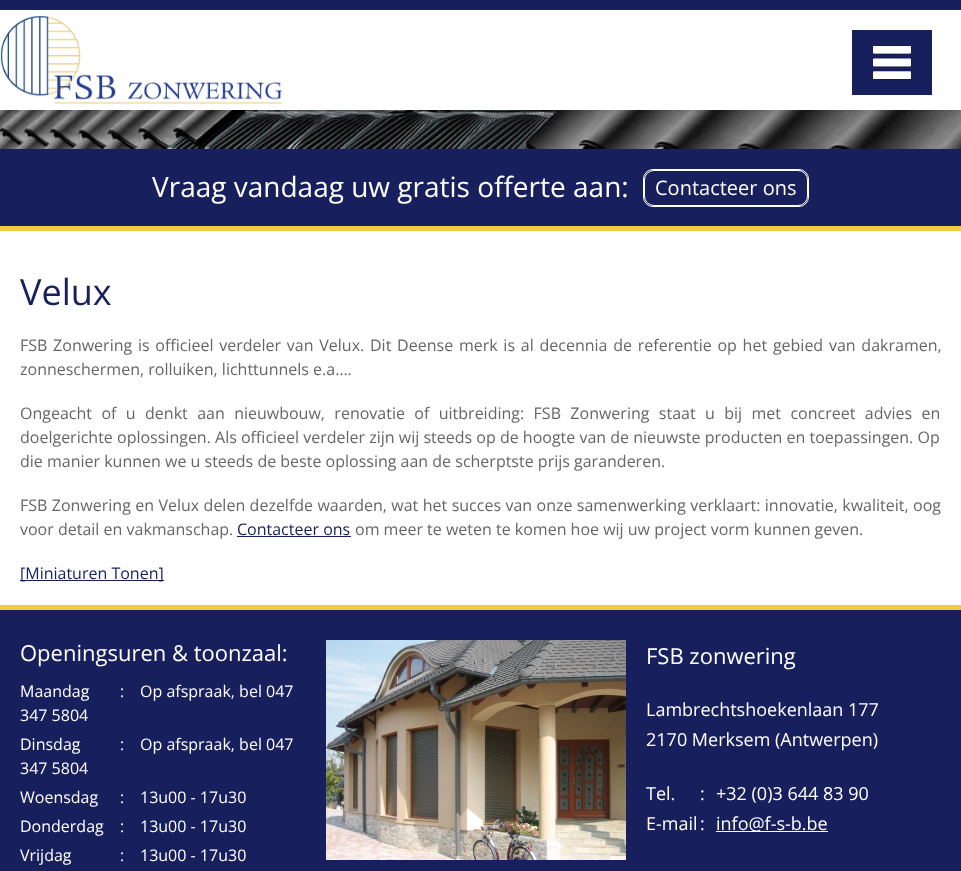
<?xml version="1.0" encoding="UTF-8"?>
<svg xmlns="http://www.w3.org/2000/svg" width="961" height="871">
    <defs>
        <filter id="blur1" x="-50%" y="-200%" width="200%" height="500%"><feGaussianBlur stdDeviation="2.5"/></filter>
    </defs>
    <rect width="100%" height="100%" fill="#FFFFFF"/>
    <image x="0" y="110" width="961" height="39" href="img_03.png"/>
    <rect x="0" y="0" width="961" height="110" fill="#000000" fill-opacity="0.15" filter="url(#blur1)"/>
    <rect x="0" y="10" width="961" height="100" fill="#FFFFFF"/>
    <rect x="0" y="0" width="961" height="10" fill="#17205D"/>
    <image x="0" y="15" width="282" height="90" href="img_01.png"/>
    <rect x="852" y="30" width="80" height="65" fill="#17205D"/>
    <image x="872" y="45" width="40" height="35" href="img_02.png"/>
    <rect x="0" y="149" width="961" height="77" fill="#17205D"/>
    <rect x="0" y="226" width="961" height="5" fill="#EDCC45"/>
    <text x="152" y="197" font-family="Open Sans" font-size="28" fill="#FFFFFF">Vraag vandaag uw gratis offerte aan:</text>
    <rect x="643.5" y="169.5" width="165" height="37" rx="9.5" fill="none" stroke="#FFFFFF"/>
    <rect x="644.5" y="170.5" width="163" height="35" rx="9.5" fill="none" stroke="#FFFFFF"/>
    <text x="655" y="195" font-family="Open Sans" font-size="20" fill="#FFFFFF">Contacteer ons</text>
    <text x="20" y="305" font-family="Open Sans" font-size="36" fill="#17205D">Velux</text>
    <text font-family="Open Sans" font-size="16" fill="#666666">
        <tspan x="20" y="351" word-spacing="1.6">FSB Zonwering is officieel verdeler van Velux. Dit Deense merk is al decennia de referentie op het gebied van dakramen,</tspan>
        <tspan x="20" y="375">zonneschermen, rolluiken, lichttunnels e.a….</tspan>
    </text>
    <text font-family="Open Sans" font-size="16" fill="#666666">
        <tspan x="20" y="419" word-spacing="5.25">Ongeacht of u denkt aan nieuwbouw, renovatie of uitbreiding: FSB Zonwering staat u bij met concreet advies en</tspan>
        <tspan x="20" y="443">doelgerichte oplossingen. Als officieel verdeler zijn wij steeds op de hoogte van de nieuwste producten en toepassingen. Op</tspan>
        <tspan x="20" y="467">die manier kunnen we u steeds de beste oplossing aan de scherptste prijs garanderen.</tspan>
    </text>
    <text font-family="Open Sans" font-size="16" fill="#666666">
        <tspan x="20" y="511" word-spacing="0.25">FSB Zonwering en Velux delen dezelfde waarden, wat het succes van onze samenwerking verklaart: innovatie, kwaliteit, oog</tspan>
        <tspan x="20" y="535">voor detail en vakmanschap.</tspan>
    </text>
    <text x="237" y="535" font-family="Open Sans" font-size="16" fill="#17205D">Contacteer ons</text>
    <rect x="237" y="536" width="114" height="1" fill="#17205D"/>
    <text x="355" y="535" font-family="Open Sans" font-size="16" fill="#666666">om meer te weten te komen hoe wij uw project vorm kunnen geven.</text>
    <rect x="20" y="580" width="144" height="1" fill="#17205D"/>
    <text x="20" y="579" font-family="Open Sans" font-size="16" fill="#17205D">[Miniaturen Tonen]</text>
    <rect x="0" y="610" width="961" height="261" fill="#17205D"/>
    <rect x="0" y="605" width="961" height="5" fill="#EDCC45"/>
    <text x="20" y="661" font-family="Open Sans" font-size="22" fill="#FFFFFF">Openingsuren &amp; toonzaal:</text>
    <text x="20" y="697" font-family="Open Sans" font-size="16" fill="#FFFFFF">Maandag</text>
    <text x="120" y="697" font-family="Open Sans" font-size="16" fill="#FFFFFF">:</text>
    <text x="140" y="697" font-family="Open Sans" font-size="16" fill="#FFFFFF">Op afspraak, bel 047</text>
    <text font-family="Open Sans" font-size="16" fill="#FFFFFF">
        <tspan x="20" y="721">347 5804</tspan>
        <tspan x="20" y="750">Dinsdag</tspan>
    </text>
    <text x="120" y="750" font-family="Open Sans" font-size="16" fill="#FFFFFF">:</text>
    <text x="140" y="750" font-family="Open Sans" font-size="16" fill="#FFFFFF">Op afspraak, bel 047</text>
    <text font-family="Open Sans" font-size="16" fill="#FFFFFF">
        <tspan x="20" y="774">347 5804</tspan>
        <tspan x="20" y="803">Woensdag</tspan>
    </text>
    <text x="120" y="803" font-family="Open Sans" font-size="16" fill="#FFFFFF">:</text>
    <text x="140" y="803" font-family="Open Sans" font-size="16" fill="#FFFFFF">13u00 - 17u30</text>
    <text x="20" y="832" font-family="Open Sans" font-size="16" fill="#FFFFFF">Donderdag</text>
    <text x="120" y="832" font-family="Open Sans" font-size="16" fill="#FFFFFF">:</text>
    <text x="140" y="832" font-family="Open Sans" font-size="16" fill="#FFFFFF">13u00 - 17u30</text>
    <text x="20" y="861" font-family="Open Sans" font-size="16" fill="#FFFFFF">Vrijdag</text>
    <text x="120" y="861" font-family="Open Sans" font-size="16" fill="#FFFFFF">:</text>
    <text x="140" y="861" font-family="Open Sans" font-size="16" fill="#FFFFFF">13u00 - 17u30</text>
    <image x="326" y="640" width="300" height="220" href="img_04.png"/>
    <text x="646" y="664" font-family="Open Sans" font-size="22" fill="#FFFFFF">FSB zonwering</text>
    <text font-family="Open Sans" font-size="18" fill="#FFFFFF">
        <tspan x="646" y="716">Lambrechtshoekenlaan 177</tspan>
        <tspan x="646" y="746">2170 Merksem (Antwerpen)</tspan>
    </text>
    <text x="646" y="800" font-family="Open Sans" font-size="18" fill="#FFFFFF">Tel.</text>
    <text x="700" y="800" font-family="Open Sans" font-size="18" fill="#FFFFFF">:</text>
    <text x="716" y="800" font-family="Open Sans" font-size="18" fill="#FFFFFF">+32 (0)3 644 83 90</text>
    <text x="646" y="830" font-family="Open Sans" font-size="18" fill="#FFFFFF">E-mail</text>
    <text x="700" y="830" font-family="Open Sans" font-size="18" fill="#FFFFFF">:</text>
    <rect x="716" y="831" width="112" height="1" fill="#FFFFFF"/>
    <text x="716" y="830" font-family="Open Sans" font-size="18" fill="#FFFFFF">info@f-s-b.be</text>
</svg>
